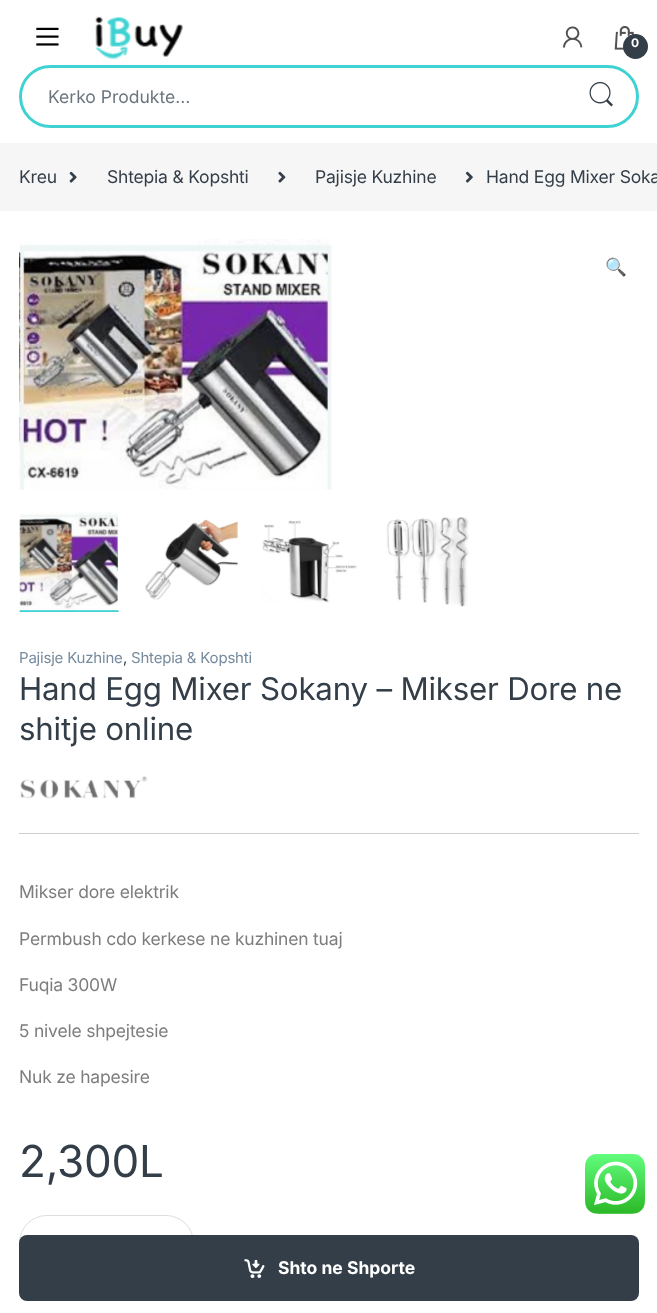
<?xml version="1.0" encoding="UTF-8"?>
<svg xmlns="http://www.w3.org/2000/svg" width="657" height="1313">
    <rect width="100%" height="100%" fill="#FFFFFF"/>
    <image x="36" y="27" width="23" height="19" href="img_01.png"/>
    <image x="95" y="16" width="88" height="44" href="img_02.png"/>
    <image x="563" y="26" width="20" height="22" href="img_03.png"/>
    <image x="614" y="26" width="20" height="24" href="img_04.png"/>
    <circle cx="635.5" cy="46.5" r="12.5" fill="#333E48"/>
    <text x="631" y="47" font-family="Inter" font-size="12" font-weight="700" letter-spacing="-0.2" fill="#FFFFFF">0</text>
    <rect x="20.5" y="66.5" width="617" height="60" rx="30" fill="none" stroke="#40D2D2" stroke-width="3"/>
    <text x="48" y="103" font-family="Inter" font-size="17.5" fill="#6C757D">Kerko Produkte…</text>
    <image x="589" y="81" width="24" height="26" href="img_05.png"/>
    <rect x="0" y="143" width="657" height="68" fill="#F7F6F6"/>
    <text x="19" y="183" font-family="Inter" font-size="17.5" letter-spacing="-0.2" fill="#333E48">Kreu</text>
    <image x="69" y="171" width="8" height="12" href="img_06.png"/>
    <text x="107" y="183" font-family="Inter" font-size="17.5" letter-spacing="-0.2" fill="#333E48">Shtepia &amp; Kopshti</text>
    <image x="278" y="171" width="8" height="12" href="img_07.png"/>
    <text x="315" y="183" font-family="Inter" font-size="17.5" letter-spacing="-0.2" fill="#333E48">Pajisje Kuzhine</text>
    <image x="465" y="171" width="8" height="12" href="img_08.png"/>
    <text x="486" y="183" font-family="Inter" font-size="17.5" letter-spacing="-0.2" fill="#333E48">Hand Egg Mixer Soka</text>
    <image x="19" y="239" width="313" height="251" href="img_09.png"/>
    <text x="605" y="273" font-family="Noto Color Emoji" font-size="17.5" letter-spacing="-0.2" fill="#333E48">🔍</text>
    <path d="M 119 612 H 19 L 20 610 H 118 Z" fill="#40D2D2"/>
    <path d="M 19 612 V 511 L 20 512 V 610 Z" fill="#FFFFFF"/>
    <rect x="20" y="550" width="98" height="21" fill="#40D2D2"/>
    <image x="19" y="512" width="99" height="99" href="img_10.png"/>
    <image x="145" y="519" width="93" height="81" href="img_11.png"/>
    <image x="262" y="520" width="95" height="83" href="img_12.png"/>
    <image x="386" y="517" width="83" height="90" href="img_13.png"/>
    <text x="19" y="663" font-family="Inter" font-size="15" letter-spacing="-0.2" fill="#768B9E">Pajisje Kuzhine</text>
    <text x="123" y="663" font-family="Inter" font-size="15" letter-spacing="-0.2" fill="#333E48">,</text>
    <text x="131" y="663" font-family="Inter" font-size="15" letter-spacing="-0.2" fill="#768B9E">Shtepia &amp; Kopshti</text>
    <text font-family="Inter" font-size="31.25" letter-spacing="-0.2" fill="#333E48">
        <tspan x="19" y="700">Hand Egg Mixer Sokany – Mikser Dore ne</tspan>
        <tspan x="19" y="740">shitje online</tspan>
    </text>
    <image x="20" y="776" width="128" height="23" href="img_14.png"/>
    <rect x="19" y="833" width="620" height="1" fill="#CCCFD1"/>
    <text x="19" y="898" font-family="Inter" font-size="17.5" letter-spacing="-0.2" fill="#7D7D7D">Mikser dore elektrik</text>
    <text x="19" y="945" font-family="Inter" font-size="17.5" letter-spacing="-0.2" fill="#7D7D7D">Permbush cdo kerkese ne kuzhinen tuaj</text>
    <text x="19" y="991" font-family="Inter" font-size="17.5" letter-spacing="-0.2" fill="#7D7D7D">Fuqia 300W</text>
    <text x="19" y="1037" font-family="Inter" font-size="17.5" letter-spacing="-0.2" fill="#7D7D7D">5 nivele shpejtesie</text>
    <text x="19" y="1083" font-family="Inter" font-size="17.5" letter-spacing="-0.2" fill="#7D7D7D">Nuk ze hapesire</text>
    <text x="19" y="1177" font-family="Inter" font-size="44" letter-spacing="-0.2" fill="#333E48">2,300L</text>
    <rect x="19.5" y="1215.5" width="174" height="55" rx="27.5" fill="none" stroke="#DDDDDD"/>
    <rect x="19" y="1235" width="620" height="66" rx="8" fill="#333E48"/>
    <image x="244" y="1259" width="21" height="19" href="img_15.png"/>
    <text x="278" y="1274" font-family="Inter" font-size="17.5" font-weight="700" fill="#FFFFFF">Shto ne Shporte</text>
    <image x="585" y="1154" width="60" height="60" href="img_16.png"/>
</svg>
